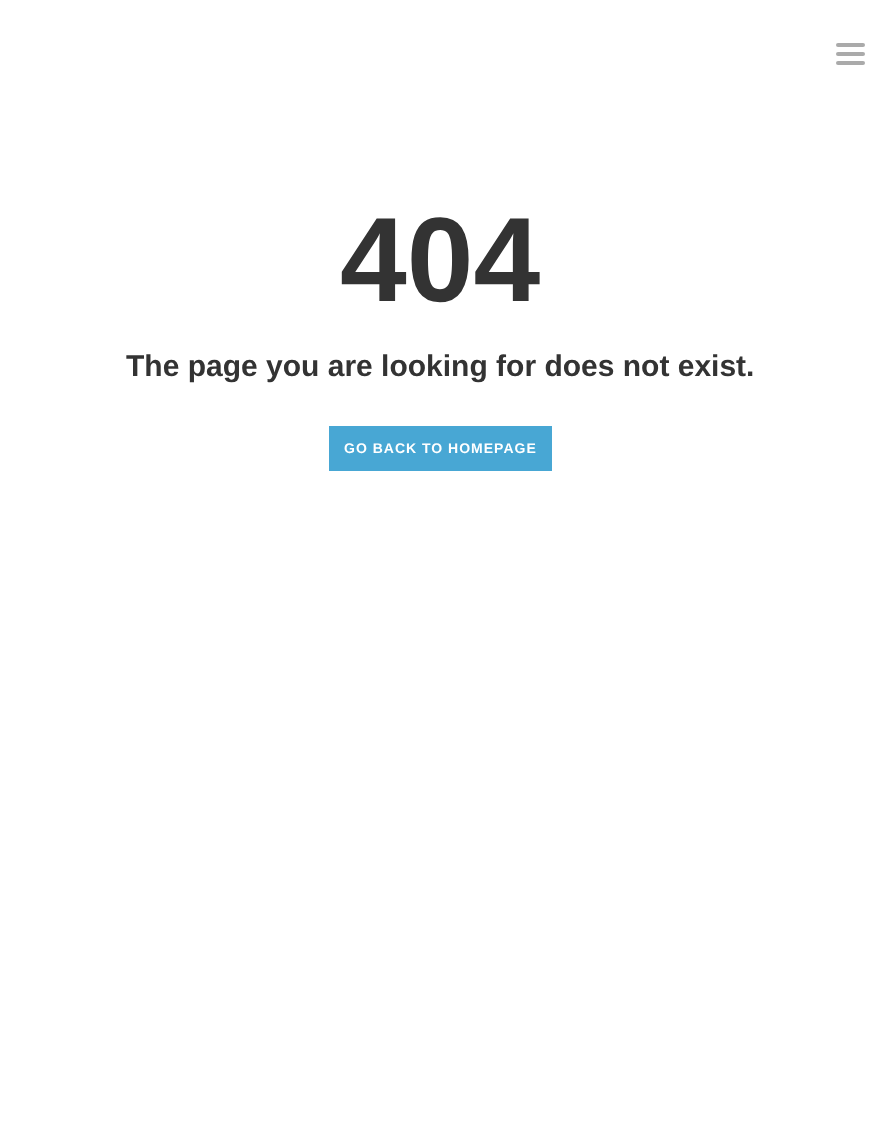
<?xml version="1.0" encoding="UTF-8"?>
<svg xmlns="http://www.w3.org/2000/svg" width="881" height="1134">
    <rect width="100%" height="100%" fill="#FFFFFF"/>
    <rect x="836" y="43" width="29" height="4" rx="2" fill="#AAAAAA"/>
    <rect x="836" y="52" width="29" height="4" rx="2" fill="#AAAAAA"/>
    <rect x="836" y="61" width="29" height="4" rx="2" fill="#AAAAAA"/>
    <text x="340" y="301" font-family="Liberation Sans" font-size="120" font-weight="700" fill="#333333">404</text>
    <text x="126" y="376" font-family="Liberation Sans" font-size="30" font-weight="700" fill="#333333">The page you are looking for does not exist.</text>
    <rect x="329" y="426" width="223" height="45" fill="#48A7D4"/>
    <text x="344" y="453" font-family="Liberation Sans" font-size="14" font-weight="700" letter-spacing="1" fill="#FFFFFF">GO BACK TO HOMEPAGE</text>
</svg>
